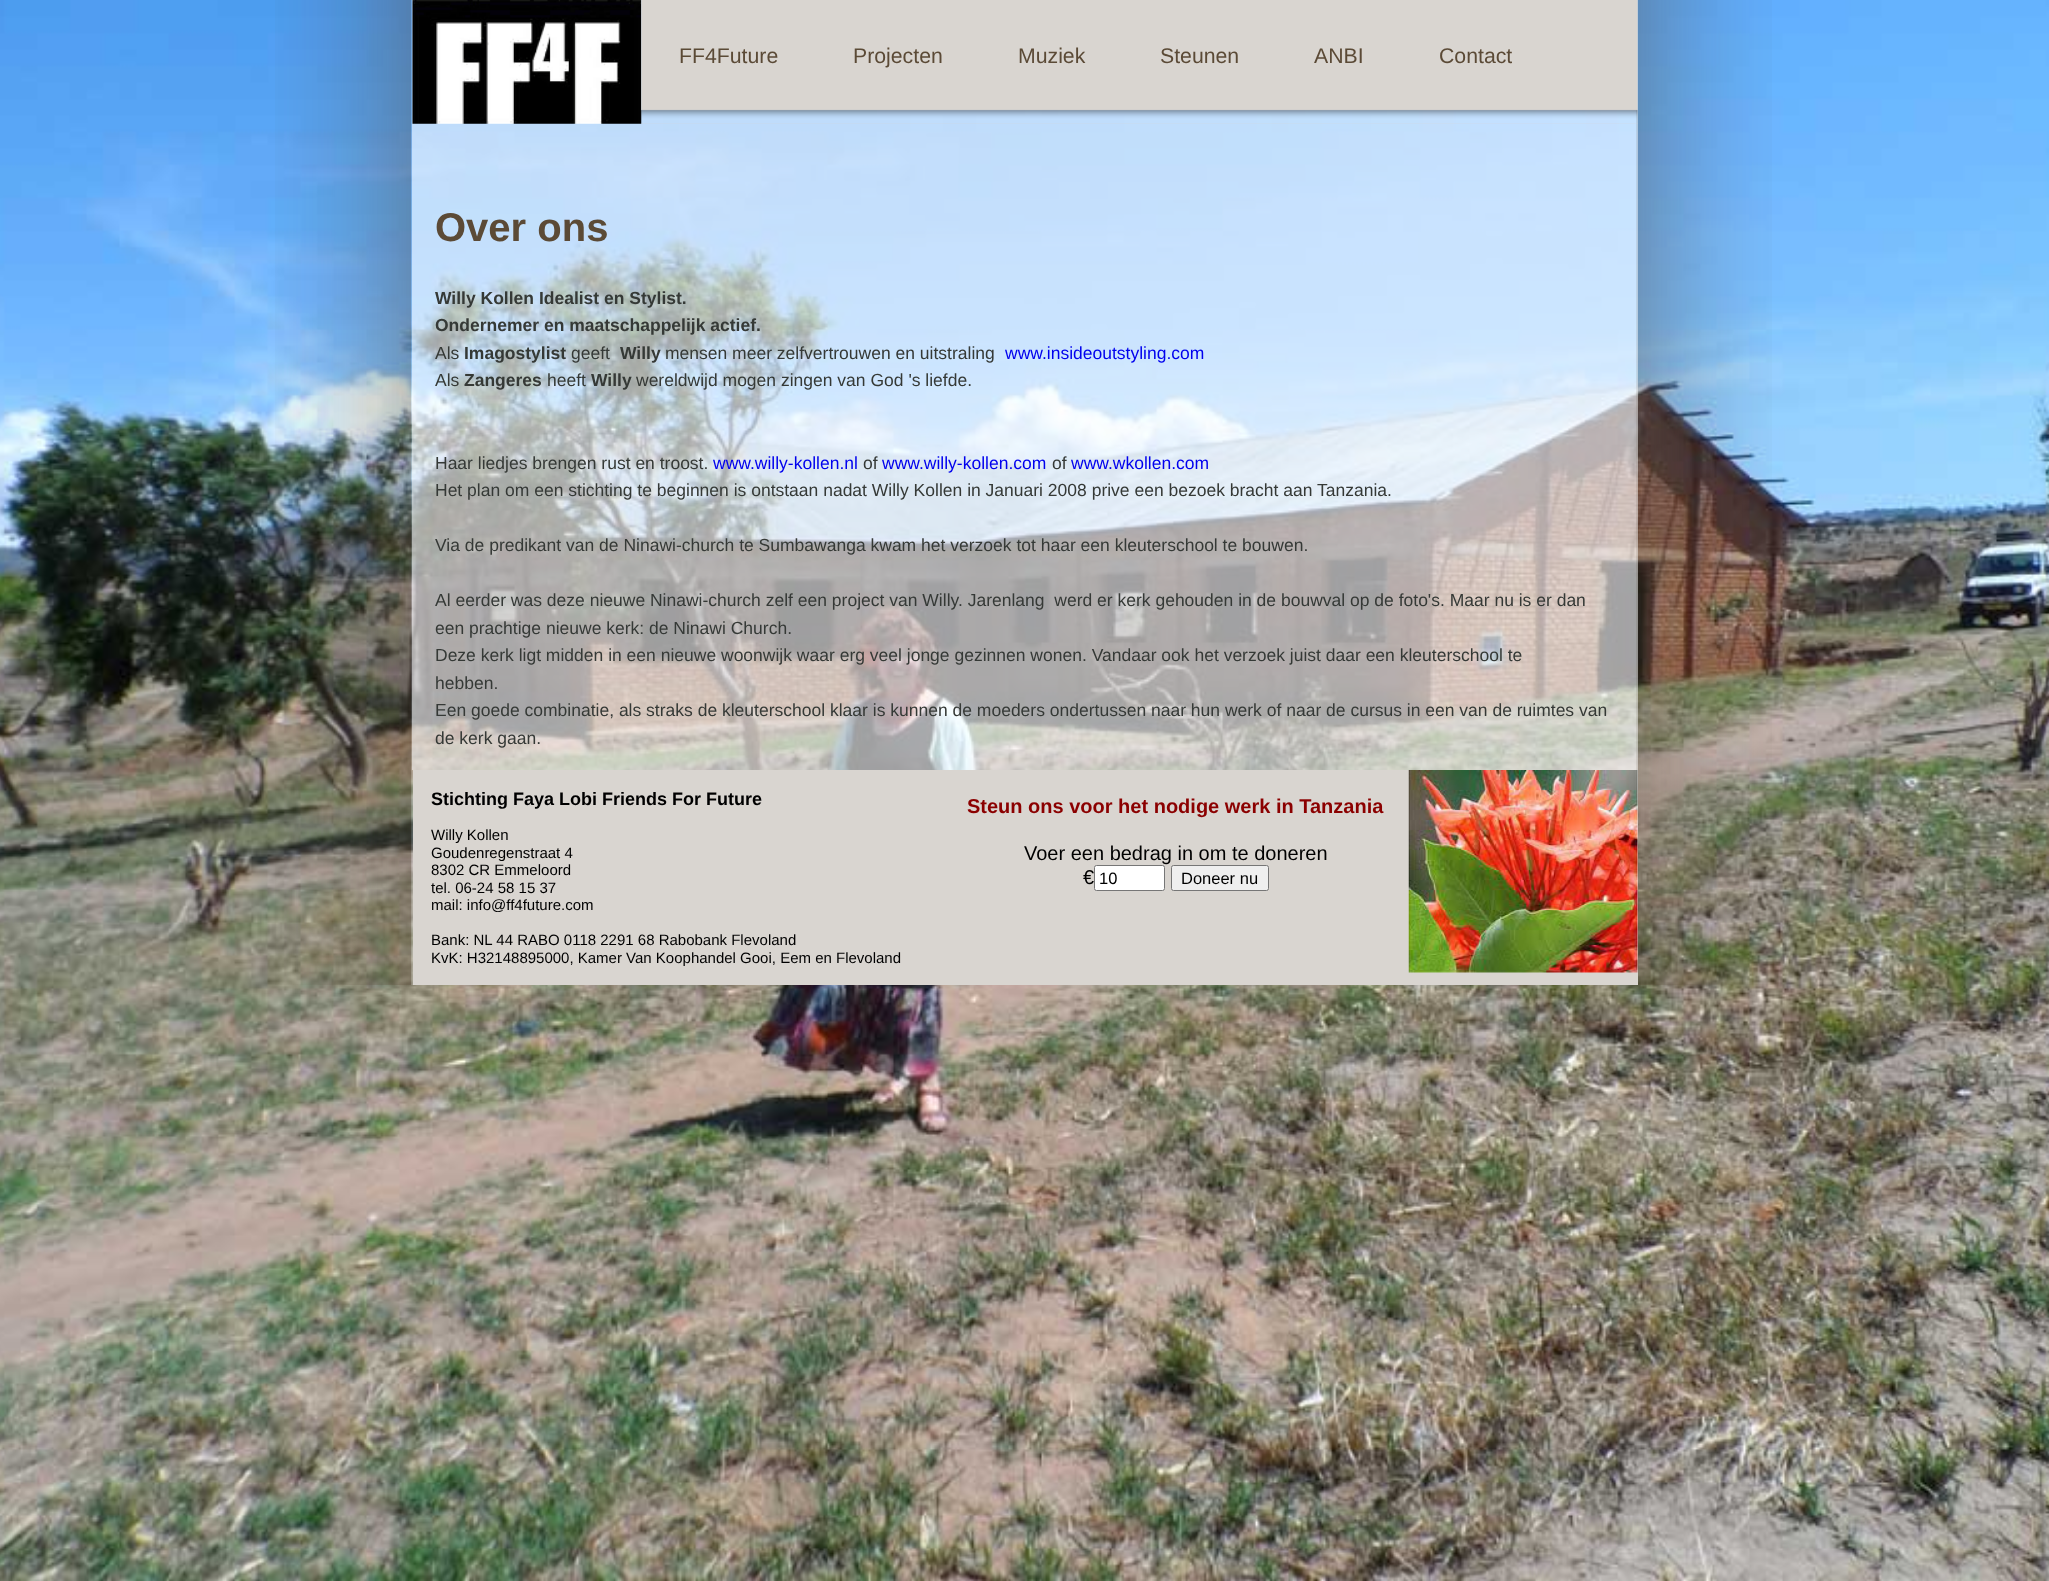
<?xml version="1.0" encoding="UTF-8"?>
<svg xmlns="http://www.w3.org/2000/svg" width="2049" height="1581">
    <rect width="100%" height="100%" fill="#FFFFFF"/>
    <image x="0" y="0" width="2049" height="1581" href="img_01.png"/>
    <image x="275" y="0" width="1497" height="985" href="img_02.png"/>
    <rect x="412" y="0" width="1226" height="770" fill="#FFFFFF" fill-opacity="0.5"/>
    <image x="412" y="0" width="230" height="124" href="img_03.png"/>
    <image x="641" y="0" width="997" height="124" href="img_04.png"/>
    <text x="679" y="63" font-family="Liberation Sans" font-size="21.25" fill="#5B4A36">FF4Future</text>
    <text x="853" y="63" font-family="Liberation Sans" font-size="21.25" fill="#5B4A36">Projecten</text>
    <text x="1018" y="63" font-family="Liberation Sans" font-size="21.25" fill="#5B4A36">Muziek</text>
    <text x="1160" y="63" font-family="Liberation Sans" font-size="21.25" fill="#5B4A36">Steunen</text>
    <text x="1314" y="63" font-family="Liberation Sans" font-size="21.25" fill="#5B4A36">ANBI</text>
    <text x="1439" y="63" font-family="Liberation Sans" font-size="21.25" fill="#5B4A36">Contact</text>
    <text x="435" y="241" font-family="Liberation Sans" font-size="40" font-weight="700" fill="#5B4A36">Over ons</text>
    <text font-family="Liberation Sans" font-size="17.5" font-weight="700" fill="#353936">
        <tspan x="435" y="304">Willy Kollen Idealist en Stylist.</tspan>
        <tspan x="435" y="331">Ondernemer en maatschappelijk actief.</tspan>
    </text>
    <text x="435" y="359" font-family="Liberation Sans" font-size="17.5" fill="#353936">Als</text>
    <text x="464" y="359" font-family="Liberation Sans" font-size="17.5" font-weight="700" fill="#353936">Imagostylist</text>
    <text x="571" y="359" font-family="Liberation Sans" font-size="17.5" fill="#353936">geeft</text>
    <text x="620" y="359" font-family="Liberation Sans" font-size="17.5" font-weight="700" fill="#353936">Willy</text>
    <text x="665" y="359" font-family="Liberation Sans" font-size="17.5" fill="#353936">mensen meer zelfvertrouwen en uitstraling</text>
    <text x="1005" y="359" font-family="Liberation Sans" font-size="17.5" fill="#0000EE">www.insideoutstyling.com</text>
    <text x="435" y="386" font-family="Liberation Sans" font-size="17.5" fill="#353936">Als</text>
    <text x="464" y="386" font-family="Liberation Sans" font-size="17.5" font-weight="700" fill="#353936">Zangeres</text>
    <text x="547" y="386" font-family="Liberation Sans" font-size="17.5" fill="#353936">heeft</text>
    <text x="591" y="386" font-family="Liberation Sans" font-size="17.5" font-weight="700" fill="#353936">Willy</text>
    <text x="636" y="386" font-family="Liberation Sans" font-size="17.5" fill="#353936">wereldwijd mogen zingen van God 's liefde.</text>
    <text x="435" y="469" font-family="Liberation Sans" font-size="17.5" fill="#353936">Haar liedjes brengen rust en troost.</text>
    <text x="713" y="469" font-family="Liberation Sans" font-size="17.5" fill="#0000EE">www.willy-kollen.nl</text>
    <text x="863" y="469" font-family="Liberation Sans" font-size="17.5" fill="#353936">of</text>
    <text x="882" y="469" font-family="Liberation Sans" font-size="17.5" fill="#0000EE">www.willy-kollen.com</text>
    <text x="1052" y="469" font-family="Liberation Sans" font-size="17.5" fill="#353936">of</text>
    <text x="1071" y="469" font-family="Liberation Sans" font-size="17.5" fill="#0000EE">www.wkollen.com</text>
    <text x="435" y="496" font-family="Liberation Sans" font-size="17.5" fill="#353936">Het plan om een stichting te beginnen is ontstaan nadat Willy Kollen in Januari 2008 prive een bezoek bracht aan Tanzania.</text>
    <text x="435" y="551" font-family="Liberation Sans" font-size="17.5" fill="#353936">Via de predikant van de Ninawi-church te Sumbawanga kwam het verzoek tot haar een kleuterschool te bouwen.</text>
    <text font-family="Liberation Sans" font-size="17.5" fill="#353936" xml:space="preserve"><tspan x="435" y="606">Al eerder was deze nieuwe Ninawi-church zelf een project van Willy. Jarenlang  werd er kerk gehouden in de bouwval op de foto's. Maar nu is er dan</tspan><tspan x="435" y="634">een prachtige nieuwe kerk: de Ninawi Church.</tspan><tspan x="435" y="661">Deze kerk ligt midden in een nieuwe woonwijk waar erg veel jonge gezinnen wonen. Vandaar ook het verzoek juist daar een kleuterschool te</tspan><tspan x="435" y="689">hebben.</tspan><tspan x="435" y="716">Een goede combinatie, als straks de kleuterschool klaar is kunnen de moeders ondertussen naar hun werk of naar de cursus in een van de ruimtes van</tspan><tspan x="435" y="744">de kerk gaan.</tspan></text>
    <rect x="413" y="770" width="1225" height="215" fill="#D9D5D0"/>
    <text x="431" y="805" font-family="Liberation Sans" font-size="18" font-weight="700" fill="#000000">Stichting Faya Lobi Friends For Future</text>
    <text font-family="Liberation Sans" font-size="15" fill="#000000">
        <tspan x="431" y="840">Willy Kollen</tspan>
        <tspan x="431" y="858">Goudenregenstraat 4</tspan>
        <tspan x="431" y="875">8302 CR Emmeloord</tspan>
        <tspan x="431" y="893">tel. 06-24 58 15 37</tspan>
        <tspan x="431" y="910">mail: info@ff4future.com</tspan>
    </text>
    <text font-family="Liberation Sans" font-size="15" fill="#000000">
        <tspan x="431" y="945">Bank: NL 44 RABO 0118 2291 68 Rabobank Flevoland</tspan>
        <tspan x="431" y="963">KvK: H32148895000, Kamer Van Koophandel Gooi, Eem en Flevoland</tspan>
    </text>
    <text x="967" y="813" font-family="Liberation Sans" font-size="20" font-weight="700" fill="#8B0000">Steun ons voor het nodige werk in Tanzania</text>
    <text x="1024" y="860" font-family="Liberation Sans" font-size="20" fill="#000000">Voer een bedrag in om te doneren</text>
    <text x="1083" y="884" font-family="Liberation Sans" font-size="20" fill="#000000">€</text>
    <rect x="1094.5" y="865.5" width="70" height="25" rx="2" fill="#FFFFFF" stroke="#767676"/>
    <text x="1099" y="884" font-family="Liberation Sans" font-size="16.5" fill="#000000">10</text>
    <rect x="1171.5" y="865.5" width="97" height="25" rx="2" fill="#EFEFEF" stroke="#767676"/>
    <text x="1181" y="884" font-family="Liberation Sans" font-size="16.5" fill="#000000">Doneer nu</text>
    <image x="1408" y="770" width="230" height="203" href="img_05.png"/>
</svg>
